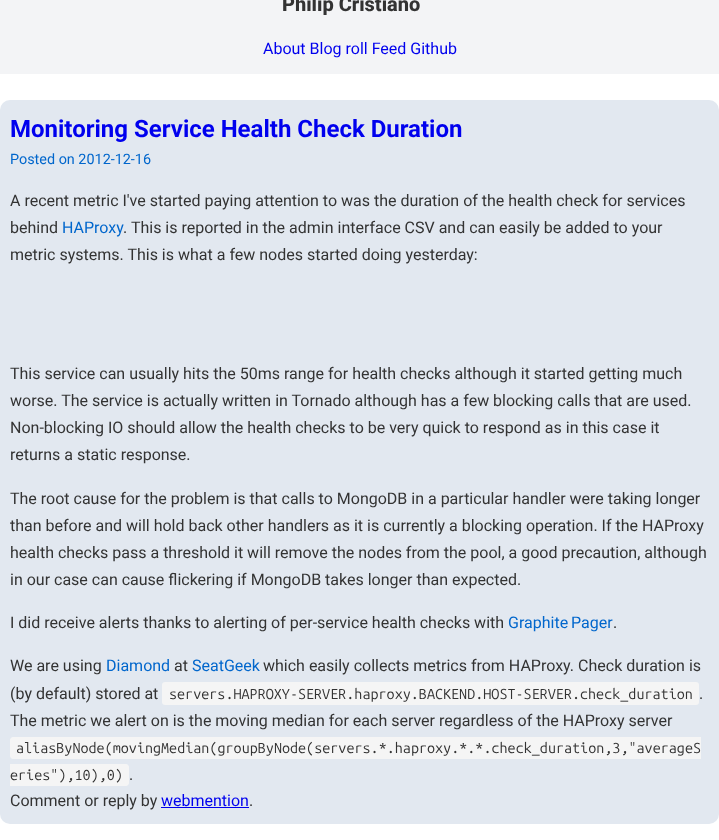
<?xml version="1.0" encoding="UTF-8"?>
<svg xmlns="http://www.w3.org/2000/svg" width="719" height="840">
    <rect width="100%" height="100%" fill="#FFFFFF"/>
    <rect x="0" y="0" width="719" height="74" fill="#F3F4F6"/>
    <text x="282" y="11" font-family="Roboto" font-size="20" font-weight="800" fill="#333333">Philip Cristiano</text>
    <text x="263" y="54" font-family="Roboto" font-size="16" fill="#0000EE">About Blog roll Feed Github</text>
    <rect x="0" y="100" width="719" height="724" rx="10" fill="#E2E8F0"/>
    <text x="10" y="137" font-family="Roboto" font-size="24" font-weight="700" fill="#0000EE">Monitoring Service Health Check Duration</text>
    <text x="10" y="164" font-family="Roboto" font-size="14.4" fill="#0066CC">Posted on 2012-12-16</text>
    <text font-family="Roboto" font-size="16" fill="#333333">
        <tspan x="10" y="206">A recent metric I've started paying attention to was the duration of the health check for services</tspan>
        <tspan x="10" y="233">behind</tspan>
    </text>
    <text x="62" y="233" font-family="Roboto" font-size="16" fill="#0066CC">HAProxy</text>
    <text x="123" y="233" font-family="Roboto" font-size="16" fill="#333333">. This is reported in the admin interface CSV and can easily be added to your</text>
    <text x="10" y="260" font-family="Roboto" font-size="16" fill="#333333">metric systems. This is what a few nodes started doing yesterday:</text>
    <text font-family="Roboto" font-size="16" fill="#333333">
        <tspan x="10" y="379">This service can usually hits the 50ms range for health checks although it started getting much</tspan>
        <tspan x="10" y="406">worse. The service is actually written in Tornado although has a few blocking calls that are used.</tspan>
        <tspan x="10" y="433">Non-blocking IO should allow the health checks to be very quick to respond as in this case it</tspan>
        <tspan x="10" y="460">returns a static response.</tspan>
    </text>
    <text font-family="Roboto" font-size="16" fill="#333333">
        <tspan x="10" y="504">The root cause for the problem is that calls to MongoDB in a particular handler were taking longer</tspan>
        <tspan x="10" y="531">than before and will hold back other handlers as it is currently a blocking operation. If the HAProxy</tspan>
        <tspan x="10" y="558">health checks pass a threshold it will remove the nodes from the pool, a good precaution, although</tspan>
        <tspan x="10" y="585">in our case can cause flickering if MongoDB takes longer than expected.</tspan>
    </text>
    <text x="10" y="628" font-family="Roboto" font-size="16" fill="#333333">I did receive alerts thanks to alerting of per-service health checks with</text>
    <text x="508" y="628" word-spacing="-1" font-family="Roboto" font-size="16" fill="#0066CC">Graphite Pager</text>
    <text x="613" y="628" font-family="Roboto" font-size="16" fill="#333333">.</text>
    <text x="10" y="671" font-family="Roboto" font-size="16" fill="#333333">We are using</text>
    <text x="106" y="671" font-family="Roboto" font-size="16" fill="#0066CC">Diamond</text>
    <text x="174" y="671" font-family="Roboto" font-size="16" fill="#333333">at</text>
    <text x="192" y="671" font-family="Roboto" font-size="16" fill="#0066CC">SeatGeek</text>
    <text x="263" y="671" font-family="Roboto" font-size="16" fill="#333333">which easily collects metrics from HAProxy. Check duration is</text>
    <text x="10" y="699" font-family="Roboto" font-size="16" fill="#333333">(by default) stored at</text>
    <rect x="162" y="682" width="537" height="23" rx="3" fill="#F5F5F5"/>
    <text x="169" y="699" font-family="Ubuntu Mono" font-size="14.4" fill="#333333">servers.HAPROXY-SERVER.haproxy.BACKEND.HOST-SERVER.check_duration</text>
    <text x="699" y="699" font-family="Roboto" font-size="16" fill="#333333">.</text>
    <text x="10" y="726" font-family="Roboto" font-size="16" fill="#333333">The metric we alert on is the moving median for each server regardless of the HAProxy server</text>
    <path d="M 13 737 H 701 V 759 H 13 C 11.5 759 10 757.5 10 756 V 740 C 10 738.5 11.5 737 13 737 Z" fill="#F5F5F5"/>
    <text x="16" y="753" font-family="Ubuntu Mono" font-size="14.4" fill="#333333">aliasByNode(movingMedian(groupByNode(servers.*.haproxy.*.*.check_duration,3,"averageS</text>
    <path d="M 10 764 H 126 C 127.5 764 129 765.5 129 767 V 783 C 129 784.5 127.5 786 126 786 H 10 Z" fill="#F5F5F5"/>
    <text x="10" y="780" font-family="Ubuntu Mono" font-size="14.4" fill="#333333">eries"),10),0)</text>
    <text x="129" y="780" font-family="Roboto" font-size="16" fill="#333333">.</text>
    <text x="10" y="806" font-family="Roboto" font-size="16" fill="#333333">Comment or reply by</text>
    <text x="161" y="806" font-family="Roboto" font-size="16" fill="#0000EE">webmention</text>
    <text x="249" y="806" font-family="Roboto" font-size="16" fill="#333333">.</text>
    <rect x="161" y="807" width="88" height="1" fill="#0000EE"/>
</svg>
